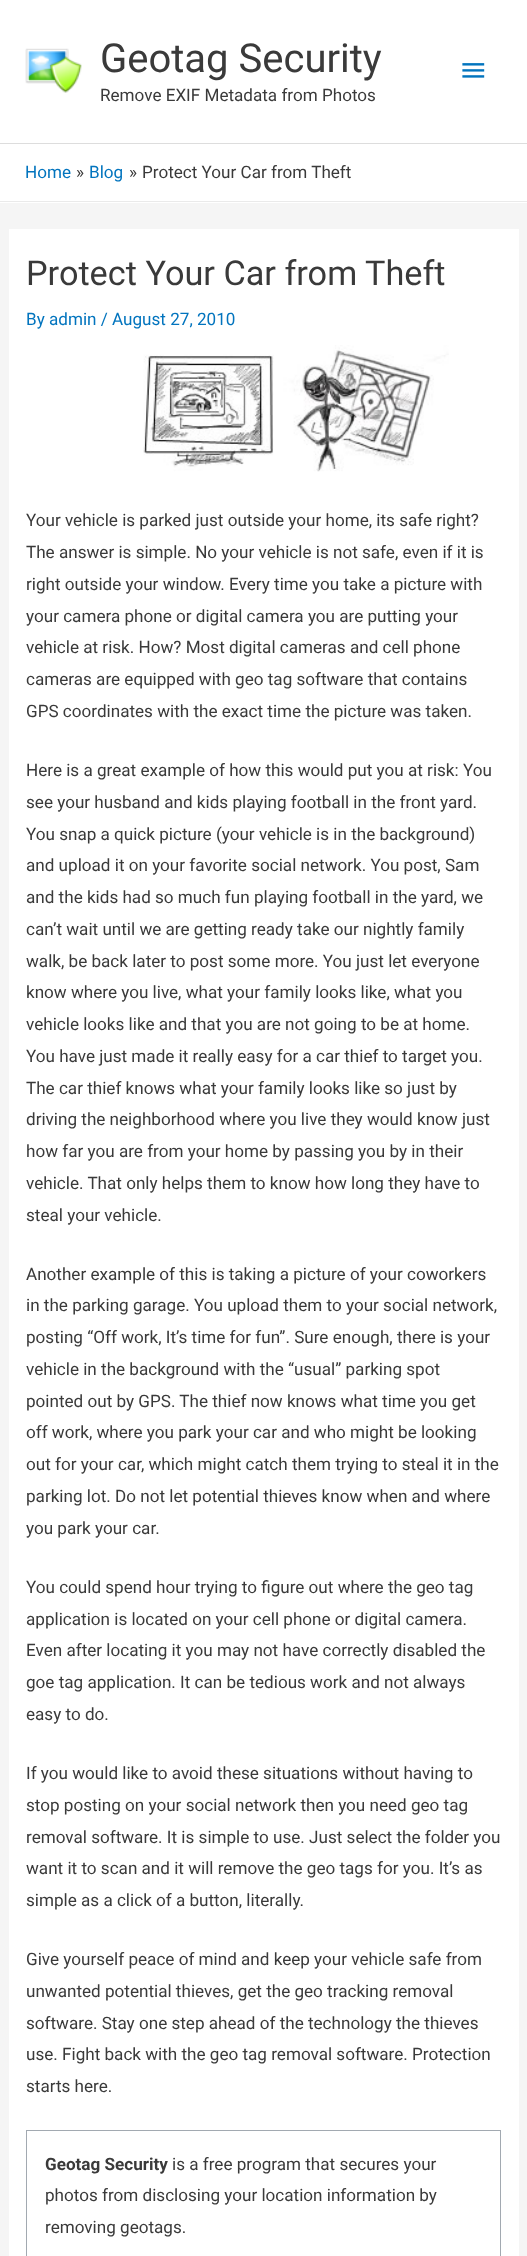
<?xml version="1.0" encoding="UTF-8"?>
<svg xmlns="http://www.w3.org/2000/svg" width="527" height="2256">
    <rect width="100%" height="100%" fill="#F5F5F5"/>
    <rect x="0" y="0" width="527" height="143" fill="#FFFFFF"/>
    <rect x="0" y="143" width="527" height="1" fill="#DDDDDD"/>
    <image x="25" y="48" width="57" height="45" href="img_01.png"/>
    <text x="100" y="72" font-family="Roboto" font-size="40" fill="#3A3A3A">Geotag Security</text>
    <text x="100" y="101" font-family="Roboto" font-size="17.1" fill="#3A3A3A">Remove EXIF Metadata from Photos</text>
    <image x="462" y="63" width="23" height="15" href="img_02.png"/>
    <rect x="0" y="144" width="527" height="59" fill="#FFFFFF"/>
    <rect x="0" y="201" width="527" height="1" fill="#EAEAEA"/>
    <text x="25" y="178" font-family="Roboto" font-size="17.1" fill="#0274BE">Home</text>
    <text x="76" y="178" font-family="Roboto" font-size="17.1" fill="#3A3A3A">»</text>
    <text x="89" y="178" font-family="Roboto" font-size="17.1" fill="#0274BE">Blog</text>
    <text x="129" y="178" font-family="Roboto" font-size="17.1" fill="#3A3A3A">»</text>
    <text x="142" y="178" font-family="Roboto" font-size="17.1" fill="#3A3A3A">Protect Your Car from Theft</text>
    <rect x="9" y="229" width="510" height="2027" fill="#FFFFFF"/>
    <text x="26" y="285" font-family="Roboto" font-size="34.25" fill="#3A3A3A">Protect Your Car from Theft</text>
    <text x="26" y="325" font-family="Roboto" font-size="17.1" fill="#0274BE">By admin / August 27, 2010</text>
    <image x="143" y="345" width="306" height="127" href="img_03.png"/>
    <text font-family="Roboto" font-size="17.1" fill="#3A3A3A">
        <tspan x="26" y="526">Your vehicle is parked just outside your home, its safe right?</tspan>
        <tspan x="26" y="558">The answer is simple. No your vehicle is not safe, even if it is</tspan>
        <tspan x="26" y="590">right outside your window. Every time you take a picture with</tspan>
        <tspan x="26" y="622">your camera phone or digital camera you are putting your</tspan>
        <tspan x="26" y="653">vehicle at risk. How? Most digital cameras and cell phone</tspan>
        <tspan x="26" y="685">cameras are equipped with geo tag software that contains</tspan>
        <tspan x="26" y="717">GPS coordinates with the exact time the picture was taken.</tspan>
    </text>
    <text font-family="Roboto" font-size="17.1" fill="#3A3A3A">
        <tspan x="26" y="776">Here is a great example of how this would put you at risk: You</tspan>
        <tspan x="26" y="808">see your husband and kids playing football in the front yard.</tspan>
        <tspan x="26" y="840">You snap a quick picture (your vehicle is in the background)</tspan>
        <tspan x="26" y="871">and upload it on your favorite social network. You post, Sam</tspan>
        <tspan x="26" y="903">and the kids had so much fun playing football in the yard, we</tspan>
        <tspan x="26" y="935">can’t wait until we are getting ready take our nightly family</tspan>
        <tspan x="26" y="967">walk, be back later to post some more. You just let everyone</tspan>
        <tspan x="26" y="998">know where you live, what your family looks like, what you</tspan>
        <tspan x="26" y="1030">vehicle looks like and that you are not going to be at home.</tspan>
        <tspan x="26" y="1062">You have just made it really easy for a car thief to target you.</tspan>
        <tspan x="26" y="1094">The car thief knows what your family looks like so just by</tspan>
        <tspan x="26" y="1125">driving the neighborhood where you live they would know just</tspan>
        <tspan x="26" y="1157">how far you are from your home by passing you by in their</tspan>
        <tspan x="26" y="1189">vehicle. That only helps them to know how long they have to</tspan>
        <tspan x="26" y="1221">steal your vehicle.</tspan>
    </text>
    <text font-family="Roboto" font-size="17.1" fill="#3A3A3A">
        <tspan x="26" y="1280">Another example of this is taking a picture of your coworkers</tspan>
        <tspan x="26" y="1311">in the parking garage. You upload them to your social network,</tspan>
        <tspan x="26" y="1343">posting “Off work, It’s time for fun”. Sure enough, there is your</tspan>
        <tspan x="26" y="1375">vehicle in the background with the “usual” parking spot</tspan>
        <tspan x="26" y="1407">pointed out by GPS. The thief now knows what time you get</tspan>
        <tspan x="26" y="1438">off work, where you park your car and who might be looking</tspan>
        <tspan x="26" y="1470">out for your car, which might catch them trying to steal it in the</tspan>
        <tspan x="26" y="1502">parking lot. Do not let potential thieves know when and where</tspan>
        <tspan x="26" y="1534">you park your car.</tspan>
    </text>
    <text font-family="Roboto" font-size="17.1" fill="#3A3A3A">
        <tspan x="26" y="1593">You could spend hour trying to figure out where the geo tag</tspan>
        <tspan x="26" y="1625">application is located on your cell phone or digital camera.</tspan>
        <tspan x="26" y="1656">Even after locating it you may not have correctly disabled the</tspan>
        <tspan x="26" y="1688">goe tag application. It can be tedious work and not always</tspan>
        <tspan x="26" y="1720">easy to do.</tspan>
    </text>
    <text font-family="Roboto" font-size="17.1" fill="#3A3A3A">
        <tspan x="26" y="1779">If you would like to avoid these situations without having to</tspan>
        <tspan x="26" y="1811">stop posting on your social network then you need geo tag</tspan>
        <tspan x="26" y="1843">removal software. It is simple to use. Just select the folder you</tspan>
        <tspan x="26" y="1874">want it to scan and it will remove the geo tags for you. It’s as</tspan>
        <tspan x="26" y="1906">simple as a click of a button, literally.</tspan>
    </text>
    <text font-family="Roboto" font-size="17.1" fill="#3A3A3A">
        <tspan x="26" y="1965">Give yourself peace of mind and keep your vehicle safe from</tspan>
        <tspan x="26" y="1997">unwanted potential thieves, get the geo tracking removal</tspan>
        <tspan x="26" y="2029">software. Stay one step ahead of the technology the thieves</tspan>
        <tspan x="26" y="2060">use. Fight back with the geo tag removal software. Protection</tspan>
        <tspan x="26" y="2092">starts here.</tspan>
    </text>
    <rect x="26.5" y="2130.5" width="474" height="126" fill="none" stroke="#A2A9B1"/>
    <text x="45" y="2170" font-family="Roboto" font-size="17.1" font-weight="700" fill="#3A3A3A">Geotag Security</text>
    <text x="172" y="2170" font-family="Roboto" font-size="17.1" fill="#3A3A3A">is a free program that secures your</text>
    <text font-family="Roboto" font-size="17.1" fill="#3A3A3A">
        <tspan x="45" y="2201">photos from disclosing your location information by</tspan>
        <tspan x="45" y="2233">removing geotags.</tspan>
    </text>
</svg>
